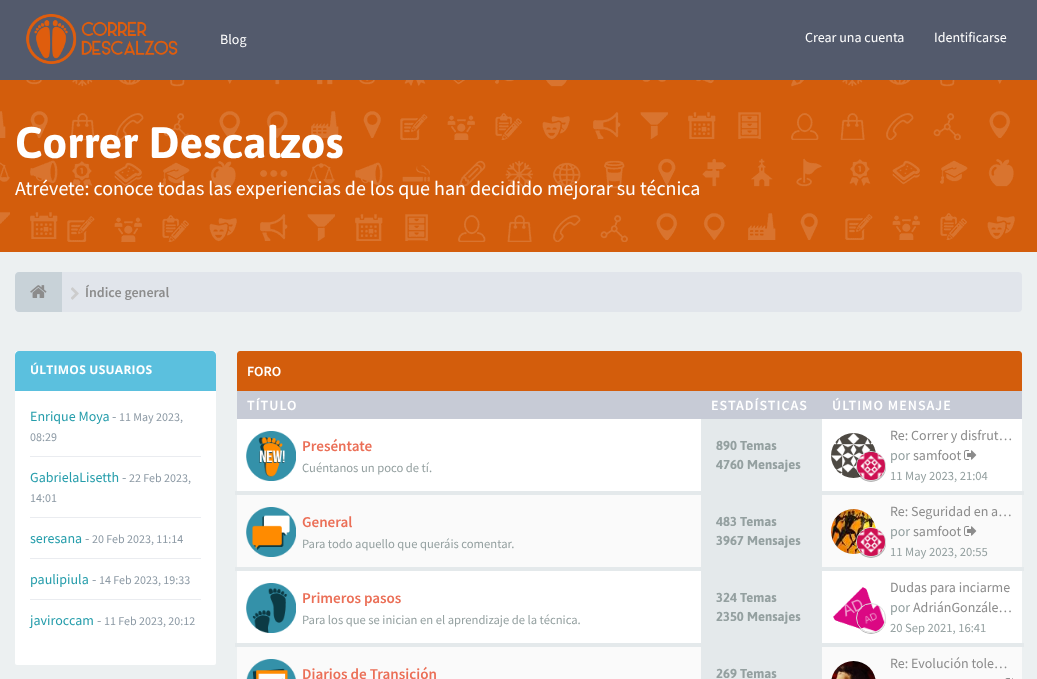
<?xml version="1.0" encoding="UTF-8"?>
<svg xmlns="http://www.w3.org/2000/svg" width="1037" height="679">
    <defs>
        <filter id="blur1" x="-50%" y="-200%" width="200%" height="500%"><feGaussianBlur stdDeviation="0.5"/></filter>
        <clipPath id="clip1"><path d="M 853 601 H 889 V 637 H 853 Z M 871 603 C 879.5 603 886 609.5 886 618 C 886 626.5 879.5 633 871 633 C 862.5 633 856 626.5 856 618 C 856 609.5 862.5 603 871 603 Z" clip-rule="evenodd"/></clipPath>
    </defs>
    <rect width="100%" height="100%" fill="#ECF0F1"/>
    <rect x="0" y="0" width="1037" height="80" fill="#535A6C"/>
    <image x="26" y="14" width="152" height="50" href="img_01.png"/>
    <text x="220" y="44" font-family="Source Sans Pro" font-size="14" fill="#FFFFFF">Blog</text>
    <text x="805" y="42" font-family="Source Sans Pro" font-size="14" fill="#FFFFFF">Crear una cuenta</text>
    <text x="934" y="42" font-family="Source Sans Pro" font-size="14" fill="#FFFFFF">Identificarse</text>
    <rect x="0" y="80" width="1037" height="172" fill="#D35D0C"/>
    <image x="0" y="80" width="1015" height="162" href="img_02.png"/>
    <text x="15" y="158" font-family="Asap" font-size="44" font-weight="700" fill="#FFFFFF">Correr Descalzos</text>
    <text x="15" y="195" font-family="Source Sans Pro" font-size="20" fill="#FFFFFF">Atrévete: conoce todas las experiencias de los que han decidido mejorar su técnica</text>
    <rect x="15" y="272" width="1007" height="40" rx="4" fill="#E1E5EB"/>
    <path d="M 19 272 H 62 V 312 H 19 C 17 312 15 310 15 308 V 276 C 15 274 17 272 19 272 Z" fill="#C8D2D8"/>
    <image x="30" y="285" width="17" height="13" href="img_03.png"/>
    <image x="71" y="287" width="8" height="13" href="img_04.png"/>
    <text x="85" y="297" font-family="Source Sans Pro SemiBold" font-size="14" font-weight="600" fill="#8C8C8C">Índice general</text>
    <rect x="15" y="351" width="201" height="314" rx="2" fill="#FFFFFF"/>
    <path d="M 19 351 H 212 C 214 351 216 353 216 355 V 391 H 15 V 355 C 15 353 17 351 19 351 Z" fill="#5BC0DE"/>
    <text x="30" y="374" font-family="Open Sans" font-size="12" font-weight="700" letter-spacing="0.25" fill="#FFFFFF">ÚLTIMOS USUARIOS</text>
    <text x="30" y="421" font-family="Source Sans Pro" font-size="14" fill="#259DAB">Enrique Moya</text>
    <text x="112" y="421" font-family="Source Sans Pro" font-size="14" fill="#8D9AA5">-</text>
    <text x="119" y="421" font-family="Source Sans Pro" font-size="12" fill="#8D9AA5">11 May 2023,</text>
    <text x="30" y="441" font-family="Source Sans Pro" font-size="12" fill="#8D9AA5">08:29</text>
    <rect x="30" y="456" width="171" height="1" fill="#EAECF0"/>
    <text x="30" y="482" font-family="Source Sans Pro" font-size="14" fill="#259DAB">GabrielaLisetth</text>
    <text x="122" y="482" font-family="Source Sans Pro" font-size="14" fill="#8D9AA5">-</text>
    <text x="129" y="482" font-family="Source Sans Pro" font-size="12" fill="#8D9AA5">22 Feb 2023,</text>
    <text x="30" y="502" font-family="Source Sans Pro" font-size="12" fill="#8D9AA5">14:01</text>
    <rect x="30" y="517" width="171" height="1" fill="#EAECF0"/>
    <text x="30" y="543" font-family="Source Sans Pro" font-size="14" fill="#259DAB">seresana</text>
    <text x="85" y="543" font-family="Source Sans Pro" font-size="14" fill="#8D9AA5">-</text>
    <text x="92" y="543" font-family="Source Sans Pro" font-size="12" fill="#8D9AA5">20 Feb 2023, 11:14</text>
    <rect x="30" y="558" width="171" height="1" fill="#EAECF0"/>
    <text x="30" y="584" font-family="Source Sans Pro" font-size="14" fill="#259DAB">paulipiula</text>
    <text x="92" y="584" font-family="Source Sans Pro" font-size="14" fill="#8D9AA5">-</text>
    <text x="99" y="584" font-family="Source Sans Pro" font-size="12" fill="#8D9AA5">14 Feb 2023, 19:33</text>
    <rect x="30" y="599" width="171" height="1" fill="#EAECF0"/>
    <text x="30" y="625" font-family="Source Sans Pro" font-size="14" fill="#259DAB">javiroccam</text>
    <text x="97" y="625" font-family="Source Sans Pro" font-size="14" fill="#8D9AA5">-</text>
    <text x="104" y="625" font-family="Source Sans Pro" font-size="12" fill="#8D9AA5">11 Feb 2023, 20:12</text>
    <path d="M 240 351 H 1019 C 1020.5 351 1022 352.5 1022 354 V 391 H 237 V 354 C 237 352.5 238.5 351 240 351 Z" fill="#D35D0C"/>
    <text x="247" y="376" font-family="Source Sans Pro SemiBold" font-size="14" font-weight="600" fill="#FFFFFF">FORO</text>
    <rect x="237" y="391" width="785" height="28" fill="#C7CBD6"/>
    <text x="247" y="410" font-family="Source Sans Pro SemiBold" font-size="14" font-weight="600" letter-spacing="1" fill="#FFFFFF">TÍTULO</text>
    <text x="711" y="410" font-family="Source Sans Pro SemiBold" font-size="14" font-weight="600" letter-spacing="1" fill="#FFFFFF">ESTADÍSTICAS</text>
    <text x="832" y="410" font-family="Source Sans Pro SemiBold" font-size="14" font-weight="600" letter-spacing="1" fill="#FFFFFF">ÚLTIMO MENSAJE</text>
    <rect x="237" y="419" width="464" height="72" fill="#FFFFFF"/>
    <image x="246" y="431" width="50" height="50" href="img_05.png"/>
    <text x="302" y="451" font-family="Source Sans Pro SemiBold" font-size="15.1" font-weight="600" fill="#EB6F57">Preséntate</text>
    <text x="302" y="472" font-family="Source Sans Pro" font-size="12.6" fill="#94A0A0">Cuéntanos un poco de tí.</text>
    <rect x="701" y="419" width="121" height="72" fill="#E4E9EB"/>
    <text font-family="Asap" font-size="13" font-weight="700" fill="#94A0A0">
        <tspan x="716" y="450">890 Temas</tspan>
        <tspan x="716" y="469">4760 Mensajes</tspan>
    </text>
    <rect x="822" y="419" width="200" height="72" fill="#FFFFFF"/>
    <image x="831" y="433" width="45" height="45" href="img_06.png"/>
    <rect x="856" y="452" width="30" height="30" rx="15" fill="#000000" fill-opacity="0.3" filter="url(#blur1)"/>
    <circle cx="871" cy="466" r="14.5" fill="none" stroke="#DDDDDD"/>
    <image x="857" y="452" width="28" height="28" href="img_07.png"/>
    <text x="890" y="440" font-family="Source Sans Pro" font-size="14" fill="#8C8C8C">Re: Correr y disfrut…</text>
    <text x="890" y="460" font-family="Source Sans Pro" font-size="14" fill="#94A0A0">por</text>
    <text x="913" y="460" font-family="Source Sans Pro" font-size="14" fill="#8C8C8C">samfoot</text>
    <image x="964" y="450" width="13" height="10" href="img_08.png"/>
    <text x="890" y="480" font-family="Source Sans Pro" font-size="12.6" fill="#94A0A0">11 May 2023, 21:04</text>
    <rect x="237" y="495" width="464" height="72" fill="#FAFAFA"/>
    <image x="246" y="507" width="50" height="50" href="img_09.png"/>
    <text x="302" y="527" font-family="Source Sans Pro SemiBold" font-size="15.1" font-weight="600" fill="#EB6F57">General</text>
    <text x="302" y="548" font-family="Source Sans Pro" font-size="12.6" fill="#94A0A0">Para todo aquello que queráis comentar.</text>
    <rect x="701" y="495" width="121" height="72" fill="#E4E9EB"/>
    <text font-family="Asap" font-size="13" font-weight="700" fill="#94A0A0">
        <tspan x="716" y="526">483 Temas</tspan>
        <tspan x="716" y="545">3967 Mensajes</tspan>
    </text>
    <rect x="822" y="495" width="200" height="72" fill="#FAFAFA"/>
    <rect x="235" y="491" width="789" height="4" fill="#E4E9EB"/>
    <image x="831" y="509" width="45" height="45" href="img_10.png"/>
    <rect x="856" y="528" width="30" height="30" rx="15" fill="#000000" fill-opacity="0.3" filter="url(#blur1)"/>
    <circle cx="871" cy="542" r="14.5" fill="none" stroke="#DDDDDD"/>
    <image x="857" y="528" width="28" height="28" href="img_11.png"/>
    <text x="890" y="516" font-family="Source Sans Pro" font-size="14" fill="#8C8C8C">Re: Seguridad en a…</text>
    <text x="890" y="536" font-family="Source Sans Pro" font-size="14" fill="#94A0A0">por</text>
    <text x="913" y="536" font-family="Source Sans Pro" font-size="14" fill="#8C8C8C">samfoot</text>
    <image x="964" y="526" width="13" height="10" href="img_12.png"/>
    <text x="890" y="556" font-family="Source Sans Pro" font-size="12.6" fill="#94A0A0">11 May 2023, 20:55</text>
    <rect x="237" y="571" width="464" height="72" fill="#FFFFFF"/>
    <image x="246" y="583" width="50" height="50" href="img_13.png"/>
    <text x="302" y="603" font-family="Source Sans Pro SemiBold" font-size="15.1" font-weight="600" fill="#EB6F57">Primeros pasos</text>
    <text x="302" y="624" font-family="Source Sans Pro" font-size="12.6" fill="#94A0A0">Para los que se inician en el aprendizaje de la técnica.</text>
    <rect x="701" y="571" width="121" height="72" fill="#E4E9EB"/>
    <text font-family="Asap" font-size="13" font-weight="700" fill="#94A0A0">
        <tspan x="716" y="602">324 Temas</tspan>
        <tspan x="716" y="621">2350 Mensajes</tspan>
    </text>
    <rect x="822" y="571" width="200" height="72" fill="#FFFFFF"/>
    <rect x="235" y="567" width="789" height="4" fill="#E4E9EB"/>
    <image x="833" y="587" width="41" height="42" href="img_14.png"/>
    <g clip-path="url(#clip1)">
        <rect x="856" y="604" width="30" height="30" rx="15" fill="#000000" fill-opacity="0.3" filter="url(#blur1)"/>
    </g>
    <circle cx="871" cy="618" r="14.5" fill="none" stroke="#DDDDDD"/>
    <image x="858" y="605" width="27" height="27" href="img_15.png"/>
    <text x="890" y="592" font-family="Source Sans Pro" font-size="14" fill="#8C8C8C">Dudas para inciarme</text>
    <text x="890" y="612" font-family="Source Sans Pro" font-size="14" fill="#94A0A0">por</text>
    <text x="913" y="612" font-family="Source Sans Pro" font-size="14" fill="#8C8C8C">AdriánGonzále…</text>
    <text x="890" y="632" font-family="Source Sans Pro" font-size="12.6" fill="#94A0A0">20 Sep 2021, 16:41</text>
    <rect x="822" y="647" width="200" height="32" fill="#FAFAFA"/>
    <rect x="235" y="643" width="789" height="4" fill="#E4E9EB"/>
    <image x="831" y="661" width="45" height="18" href="img_16.png"/>
    <text x="890" y="668" font-family="Source Sans Pro" font-size="14" fill="#8C8C8C">Re: Evolución tole…</text>
    <image x="1005" y="678" width="8" height="1" href="img_17.png"/>
    <rect x="237" y="647" width="464" height="32" fill="#FAFAFA"/>
    <image x="246" y="659" width="50" height="20" href="img_18.png"/>
    <text x="302" y="679" font-family="Source Sans Pro SemiBold" font-size="15.1" font-weight="600" fill="#EB6F57">Diarios de Transición</text>
    <rect x="701" y="647" width="121" height="32" fill="#E4E9EB"/>
    <text x="716" y="678" font-family="Asap" font-size="13" font-weight="700" fill="#94A0A0">269 Temas</text>
</svg>
